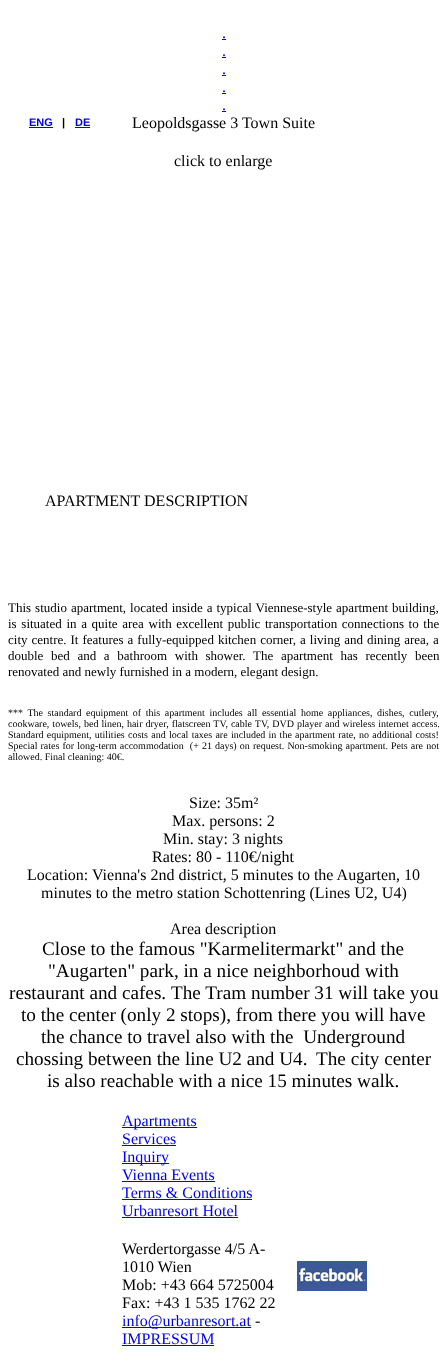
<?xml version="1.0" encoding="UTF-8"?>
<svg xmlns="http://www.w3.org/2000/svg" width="447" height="1367">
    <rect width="100%" height="100%" fill="#FFFFFF"/>
    <text x="222" y="38" font-family="Liberation Serif" font-size="16" fill="#0000EE">.</text>
    <rect x="222" y="39" width="4" height="1" fill="#0000EE"/>
    <text x="222" y="56" font-family="Liberation Serif" font-size="16" fill="#0000EE">.</text>
    <rect x="222" y="57" width="4" height="1" fill="#0000EE"/>
    <text x="222" y="74" font-family="Liberation Serif" font-size="16" fill="#0000EE">.</text>
    <rect x="222" y="75" width="4" height="1" fill="#0000EE"/>
    <text x="222" y="92" font-family="Liberation Serif" font-size="16" fill="#0000EE">.</text>
    <rect x="222" y="93" width="4" height="1" fill="#0000EE"/>
    <text x="222" y="110" font-family="Liberation Serif" font-size="16" fill="#0000EE">.</text>
    <rect x="222" y="111" width="4" height="1" fill="#0000EE"/>
    <text x="29" y="126" font-family="Liberation Sans" font-size="11" font-weight="700" fill="#0000EE">ENG</text>
    <rect x="29" y="127" width="24" height="1" fill="#0000EE"/>
    <text x="62" y="126" font-family="Liberation Sans" font-size="11" font-weight="700" fill="#000000">|</text>
    <text x="75" y="126" font-family="Liberation Sans" font-size="11" font-weight="700" fill="#0000EE">DE</text>
    <rect x="75" y="127" width="15" height="1" fill="#0000EE"/>
    <text x="132" y="128" font-family="Liberation Serif" font-size="16" fill="#000000">Leopoldsgasse 3 Town Suite</text>
    <text x="174" y="166" font-family="Liberation Serif" font-size="16" fill="#000000">click to enlarge</text>
    <text x="45" y="506" font-family="Liberation Serif" font-size="16" fill="#000000">APARTMENT DESCRIPTION</text>
    <text font-family="Liberation Serif" font-size="13" fill="#000000">
        <tspan x="8" y="612" word-spacing="0.75">This studio apartment, located inside a typical Viennese-style apartment building,</tspan>
        <tspan x="8" y="628" word-spacing="1.4">is situated in a quite area with excellent public transportation connections to the</tspan>
        <tspan x="8" y="644" word-spacing="0.75">city centre. It features a fully-equipped kitchen corner, a living and dining area, a</tspan>
        <tspan x="8" y="660" word-spacing="4.4">double bed and a bathroom with shower. The apartment has recently been</tspan>
        <tspan x="8" y="676">renovated and newly furnished in a modern, elegant design.</tspan>
    </text>
    <text font-family="Liberation Serif" font-size="10" fill="#000000" xml:space="preserve"><tspan x="8" y="716" word-spacing="2.1">*** The standard equipment of this apartment includes all essential home appliances, dishes, cutlery,</tspan><tspan x="8" y="727" word-spacing="0.5">cookware, towels, bed linen, hair dryer, flatscreen TV, cable TV, DVD player and wireless internet access.</tspan><tspan x="8" y="738" word-spacing="0.75">Standard equipment, utilities costs and local taxes are included in the apartment rate, no additional costs!</tspan><tspan x="8" y="749" word-spacing="0.6">Special rates for long-term accommodation  (+ 21 days) on request. Non-smoking apartment. Pets are not</tspan><tspan x="8" y="760">allowed. Final cleaning: 40€.</tspan></text>
    <text x="189" y="808" font-family="Liberation Serif" font-size="16" fill="#000000">Size: 35m²</text>
    <text x="172" y="826" font-family="Liberation Serif" font-size="16" fill="#000000">Max. persons: 2</text>
    <text x="163" y="844" font-family="Liberation Serif" font-size="16" fill="#000000">Min. stay: 3 nights</text>
    <text x="152" y="862" font-family="Liberation Serif" font-size="16" fill="#000000">Rates: 80 - 110€/night</text>
    <text x="27" y="880" font-family="Liberation Serif" font-size="16" fill="#000000">Location: Vienna's 2nd district, 5 minutes to the Augarten, 10</text>
    <text x="41" y="898" font-family="Liberation Serif" font-size="16" fill="#000000">minutes to the metro station Schottenring (Lines U2, U4)</text>
    <text x="170" y="934" font-family="Liberation Serif" font-size="16" fill="#000000">Area description</text>
    <text x="42" y="955" font-family="Liberation Serif" font-size="19.2" fill="#000000">Close to the famous "Karmelitermarkt" and the</text>
    <text x="48" y="977" font-family="Liberation Serif" font-size="19.2" fill="#000000">"Augarten" park, in a nice neighborhoud with</text>
    <text x="9" y="999" font-family="Liberation Serif" font-size="19.2" fill="#000000">restaurant and cafes.</text>
    <text x="171" y="999" font-family="Liberation Serif" font-size="19.2" fill="#000000">The Tram number 31 will take you</text>
    <text x="21" y="1021" font-family="Liberation Serif" font-size="19.2" fill="#000000">to the center (only 2 stops), from there you will have</text>
    <text x="41" y="1043" font-family="Liberation Serif" font-size="19.2" fill="#000000" xml:space="preserve">the chance to travel also with the  Underground</text>
    <text x="16" y="1065" font-family="Liberation Serif" font-size="19.2" fill="#000000">chossing between the line U2 and U4.</text>
    <text x="316" y="1065" font-family="Liberation Serif" font-size="19.2" fill="#000000">The city center</text>
    <text x="47" y="1087" font-family="Liberation Serif" font-size="19.2" fill="#000000">is also reachable with a nice 15 minutes walk.</text>
    <rect x="122" y="1127" width="75" height="1" fill="#0000EE"/>
    <text font-family="Liberation Serif" font-size="16" fill="#0000EE">
        <tspan x="122" y="1126">Apartments</tspan>
        <tspan x="122" y="1144">Services</tspan>
    </text>
    <rect x="122" y="1145" width="54" height="1" fill="#0000EE"/>
    <rect x="122" y="1163" width="47" height="1" fill="#0000EE"/>
    <text font-family="Liberation Serif" font-size="16" fill="#0000EE">
        <tspan x="122" y="1162">Inquiry</tspan>
        <tspan x="122" y="1180">Vienna Events</tspan>
    </text>
    <rect x="122" y="1181" width="93" height="1" fill="#0000EE"/>
    <text x="122" y="1198" font-family="Liberation Serif" font-size="16" fill="#0000EE">Terms &amp; Conditions</text>
    <rect x="122" y="1199" width="130" height="1" fill="#0000EE"/>
    <text x="122" y="1216" font-family="Liberation Serif" font-size="16" fill="#0000EE">Urbanresort Hotel</text>
    <rect x="122" y="1217" width="116" height="1" fill="#0000EE"/>
    <text font-family="Liberation Serif" font-size="16" fill="#000000">
        <tspan x="122" y="1254">Werdertorgasse 4/5 A-</tspan>
        <tspan x="122" y="1272">1010 Wien</tspan>
        <tspan x="122" y="1290">Mob: +43 664 5725004</tspan>
        <tspan x="122" y="1308">Fax: +43 1 535 1762 22</tspan>
    </text>
    <rect x="122" y="1327" width="129" height="1" fill="#0000EE"/>
    <text x="122" y="1326" font-family="Liberation Serif" font-size="16" fill="#0000EE">info@urbanresort.at</text>
    <text x="255" y="1326" font-family="Liberation Serif" font-size="16" fill="#000000">-</text>
    <text x="122" y="1344" font-family="Liberation Serif" font-size="16" fill="#0000EE">IMPRESSUM</text>
    <rect x="122" y="1345" width="92" height="1" fill="#0000EE"/>
    <image x="297" y="1261" width="70" height="30" href="img_01.png"/>
</svg>
